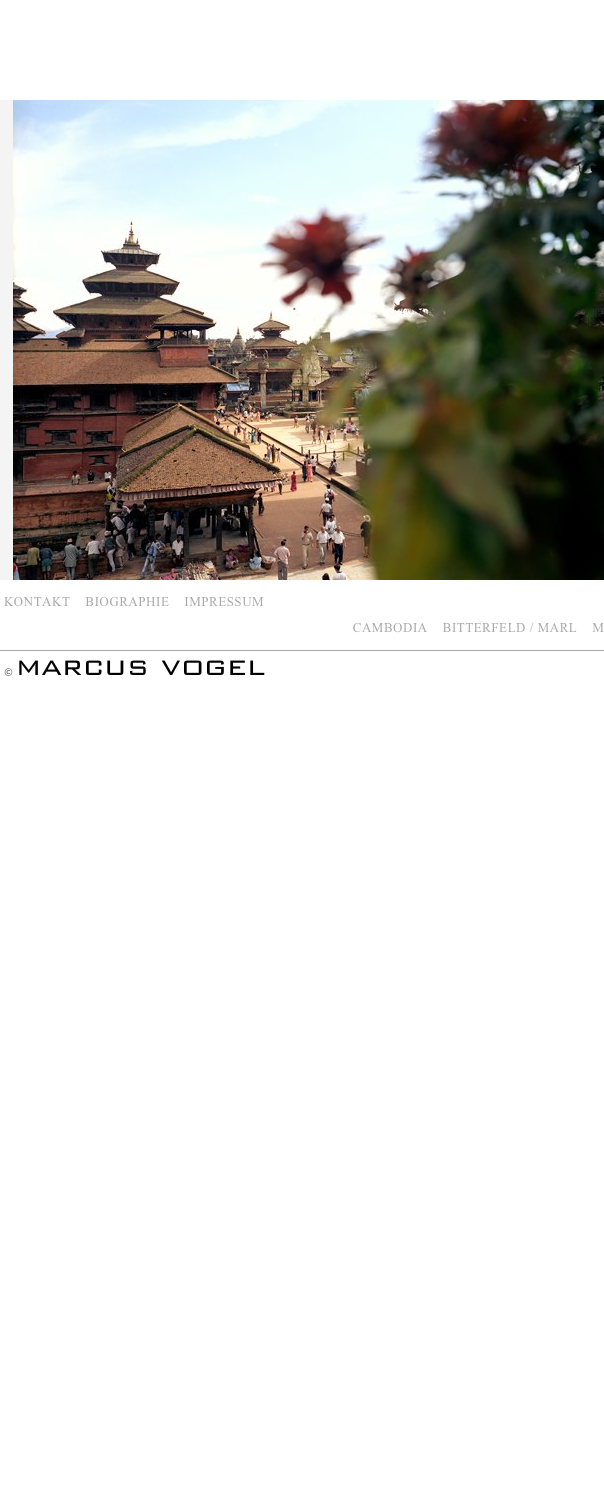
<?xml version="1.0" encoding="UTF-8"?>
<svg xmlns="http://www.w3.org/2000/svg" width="604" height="1496">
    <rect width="100%" height="100%" fill="#FFFFFF"/>
    <rect x="0" y="100" width="13" height="480" fill="#F4F4F4"/>
    <image x="13" y="100" width="591" height="480" href="img_01.png"/>
    <image x="4" y="596" width="66" height="11" href="img_02.png"/>
    <image x="85" y="596" width="84" height="11" href="img_03.png"/>
    <image x="184" y="596" width="80" height="11" href="img_04.png"/>
    <image x="353" y="622" width="74" height="11" href="img_05.png"/>
    <image x="443" y="622" width="134" height="10" href="img_06.png"/>
    <image x="592" y="623" width="12" height="9" href="img_07.png"/>
    <rect x="0" y="650" width="604" height="1" fill="#A9A9A9"/>
    <image x="4" y="660" width="261" height="16" href="img_08.png"/>
</svg>
